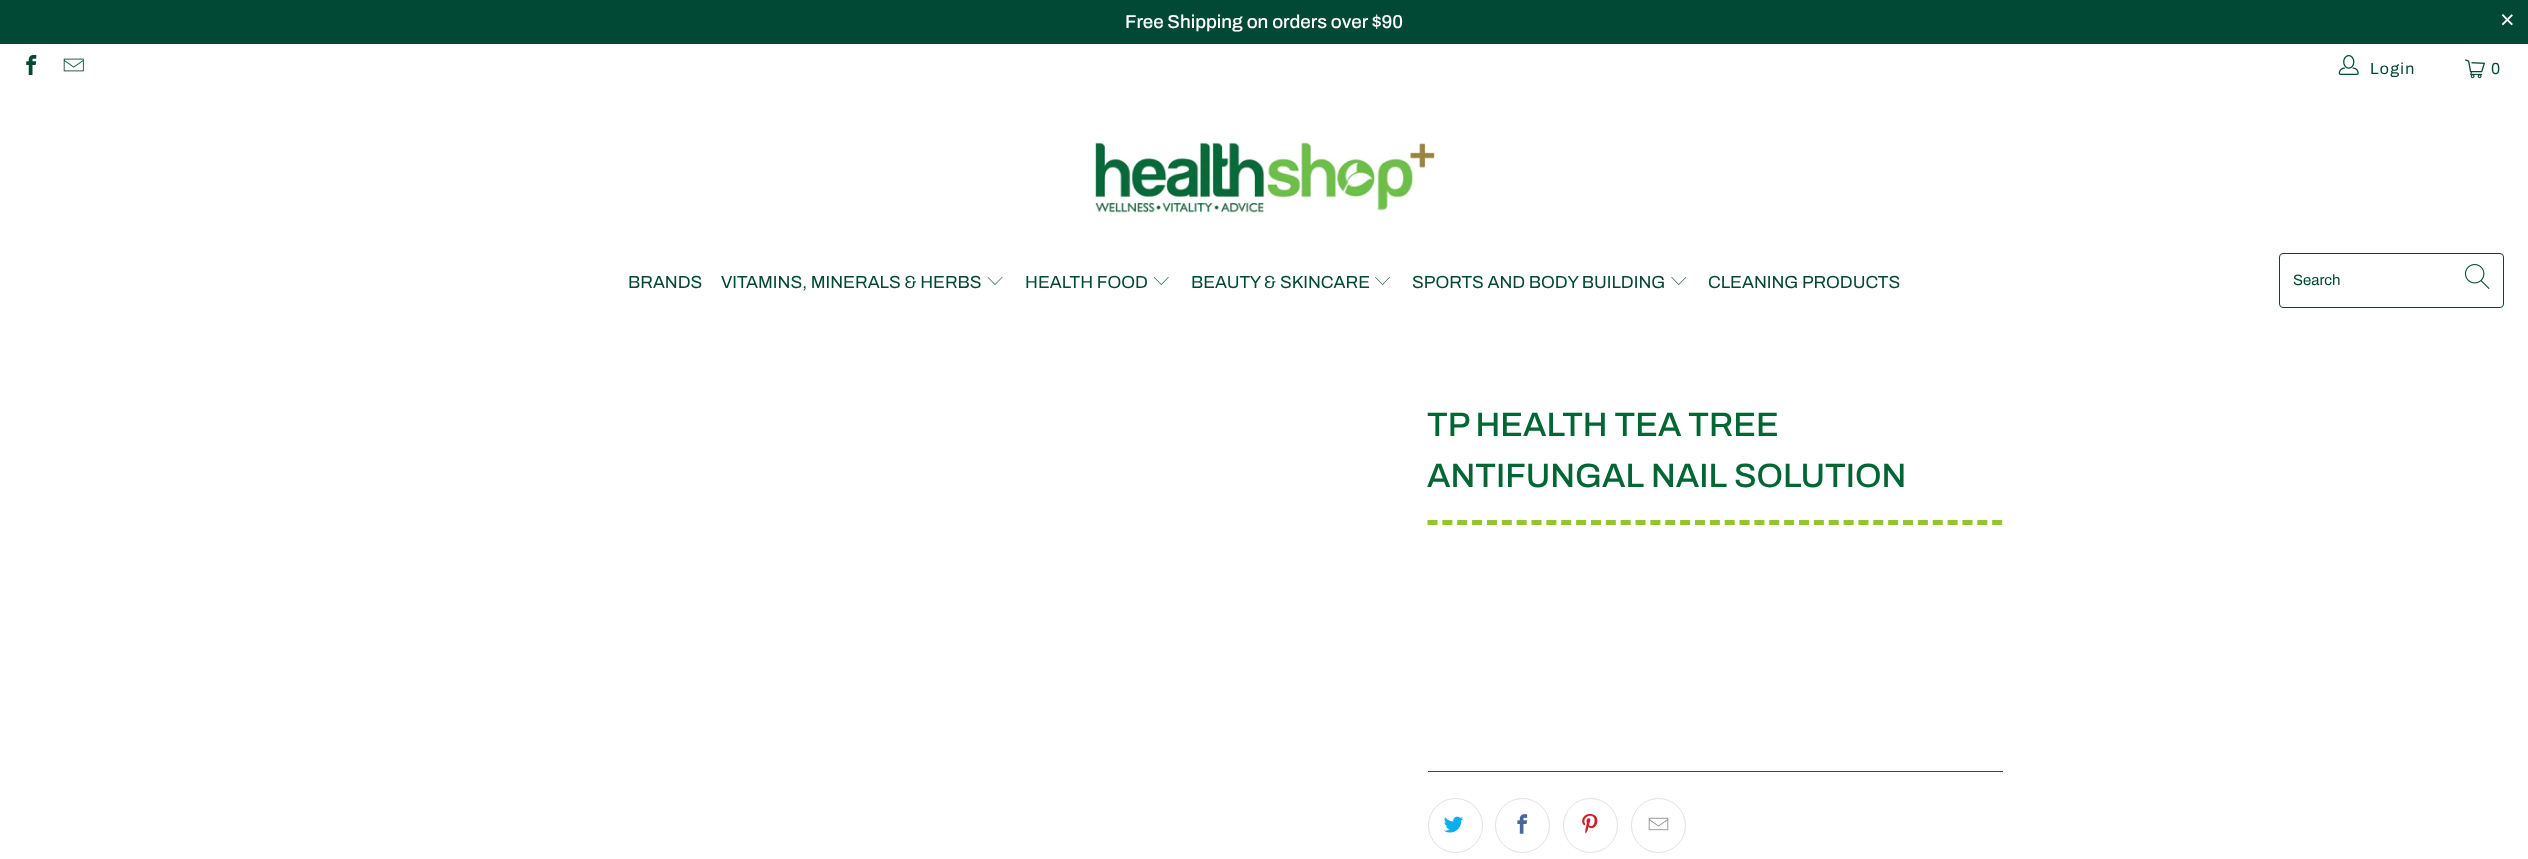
<?xml version="1.0" encoding="UTF-8"?>
<svg xmlns="http://www.w3.org/2000/svg" width="2528" height="859">
    <rect width="100%" height="100%" fill="#FFFFFF"/>
    <rect x="0" y="0" width="2528" height="44" fill="#014934"/>
    <text x="1125" y="28" font-family="Archivo" font-size="18.75" font-weight="500" fill="#FFFFFF">Free Shipping on orders over $90</text>
    <text x="2500" y="28" font-family="Liberation Sans" font-size="25" fill="#FFFFFF">×</text>
    <image x="26" y="55" width="11" height="20" href="img_01.png"/>
    <image x="63" y="58" width="21" height="14" href="img_02.png"/>
    <image x="2338" y="55" width="21" height="20" href="img_03.png"/>
    <text x="2370" y="74" font-family="Archivo" font-size="16" letter-spacing="1.25" fill="#014934">Login</text>
    <image x="2465" y="59" width="20" height="20" href="img_04.png"/>
    <text x="2491" y="74" font-family="Archivo" font-size="16" letter-spacing="1.25" fill="#014934">0</text>
    <image x="1092" y="142" width="344" height="74" href="img_05.png"/>
    <text x="628" y="288" font-family="Archivo" font-size="17.5" fill="#014934">BRANDS</text>
    <text x="721" y="288" font-family="Archivo" font-size="17.5" fill="#014934">VITAMINS, MINERALS &amp; HERBS</text>
    <image x="987" y="277" width="16" height="8" href="img_06.png"/>
    <text x="1025" y="288" font-family="Archivo" font-size="17.5" fill="#014934">HEALTH FOOD</text>
    <image x="1153" y="277" width="16" height="8" href="img_07.png"/>
    <text x="1191" y="288" font-family="Archivo" font-size="17.5" fill="#014934">BEAUTY &amp; SKINCARE</text>
    <image x="1375" y="277" width="15" height="8" href="img_08.png"/>
    <text x="1412" y="288" font-family="Archivo" font-size="17.5" fill="#014934">SPORTS AND BODY BUILDING</text>
    <image x="1671" y="277" width="16" height="8" href="img_09.png"/>
    <text x="1708" y="288" font-family="Archivo" font-size="17.5" fill="#014934">CLEANING PRODUCTS</text>
    <rect x="2279.5" y="253.5" width="224" height="54" rx="3.5" fill="none" stroke="#014934"/>
    <text x="2293" y="285" font-family="Archivo" font-size="15" fill="#014934">Search</text>
    <image x="2465" y="264" width="25" height="25" href="img_10.png"/>
    <text font-family="Archivo" font-size="33.75" font-weight="500" fill="#006634">
        <tspan x="1427" y="436">TP HEALTH TEA TREE</tspan>
        <tspan x="1427" y="487">ANTIFUNGAL NAIL SOLUTION</tspan>
    </text>
    <path d="M 1427.5 522.5 H 2002.5" fill="none" stroke="#92C52E" stroke-width="5" stroke-dasharray="10 4.86"/>
    <rect x="1428" y="771" width="575" height="1" fill="#006634"/>
    <circle cx="1455.5" cy="825.5" r="27" fill="none" stroke="#E2E2E2"/>
    <image x="1444" y="816" width="20" height="17" href="img_11.png"/>
    <circle cx="1522.5" cy="825.5" r="27" fill="none" stroke="#E2E2E2"/>
    <image x="1517" y="814" width="11" height="20" href="img_12.png"/>
    <circle cx="1590.5" cy="825.5" r="27" fill="none" stroke="#E2E2E2"/>
    <image x="1582" y="814" width="16" height="20" href="img_13.png"/>
    <circle cx="1658.5" cy="825.5" r="27" fill="none" stroke="#E2E2E2"/>
    <image x="1648" y="817" width="21" height="14" href="img_14.png"/>
</svg>
